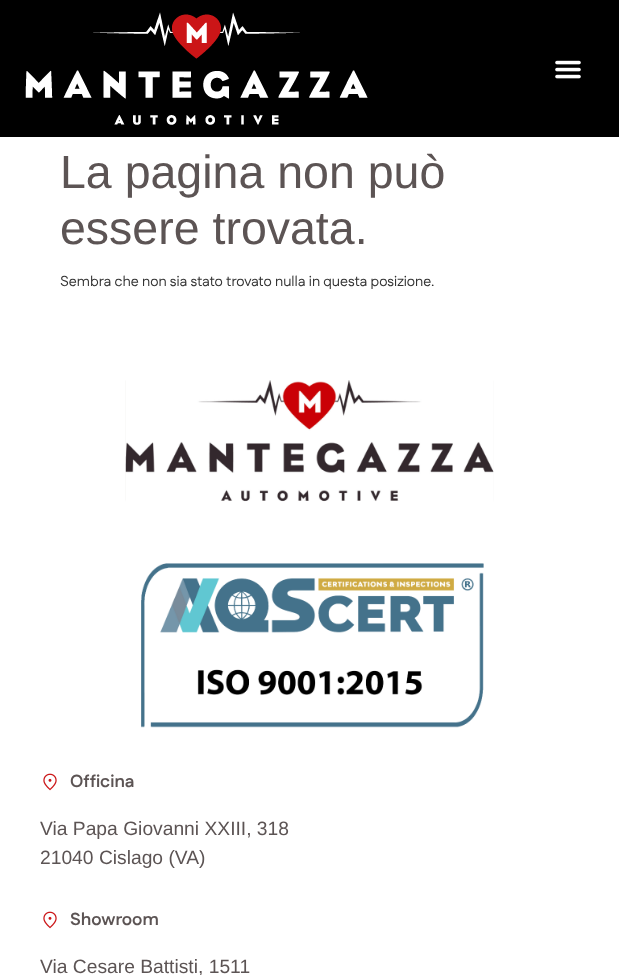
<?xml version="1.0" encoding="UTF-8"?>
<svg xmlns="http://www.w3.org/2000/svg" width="619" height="975">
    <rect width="100%" height="100%" fill="#FFFFFF"/>
    <rect x="0" y="0" width="619" height="137" fill="#000000"/>
    <image x="25" y="12" width="343" height="113" href="img_01.png"/>
    <image x="555" y="60" width="26" height="19" href="img_02.png"/>
    <text font-family="Liberation Sans" font-size="46.5" fill="#5C5454">
        <tspan x="60" y="188">La pagina non può</tspan>
        <tspan x="60" y="244">essere trovata.</tspan>
    </text>
    <text x="60" y="286" font-family="Fustat" font-size="14.4" fill="#333333">Sembra che non sia stato trovato nulla in questa posizione.</text>
    <image x="125" y="380" width="369" height="122" href="img_03.png"/>
    <image x="141" y="563" width="343" height="165" href="img_04.png"/>
    <image x="43" y="773" width="14" height="18" href="img_05.png"/>
    <text x="70" y="787" font-family="Fustat" font-size="17.5" font-weight="700" fill="#5C5454">Officina</text>
    <text font-family="Liberation Sans" font-size="19.25" fill="#5C5454">
        <tspan x="40" y="835">Via Papa Giovanni XXIII, 318</tspan>
        <tspan x="40" y="864">21040 Cislago (VA)</tspan>
    </text>
    <image x="43" y="911" width="14" height="18" href="img_05.png"/>
    <text x="70" y="925" font-family="Fustat" font-size="17.5" font-weight="700" fill="#5C5454">Showroom</text>
    <text x="40" y="973" font-family="Liberation Sans" font-size="19.25" fill="#5C5454">Via Cesare Battisti, 1511</text>
</svg>
